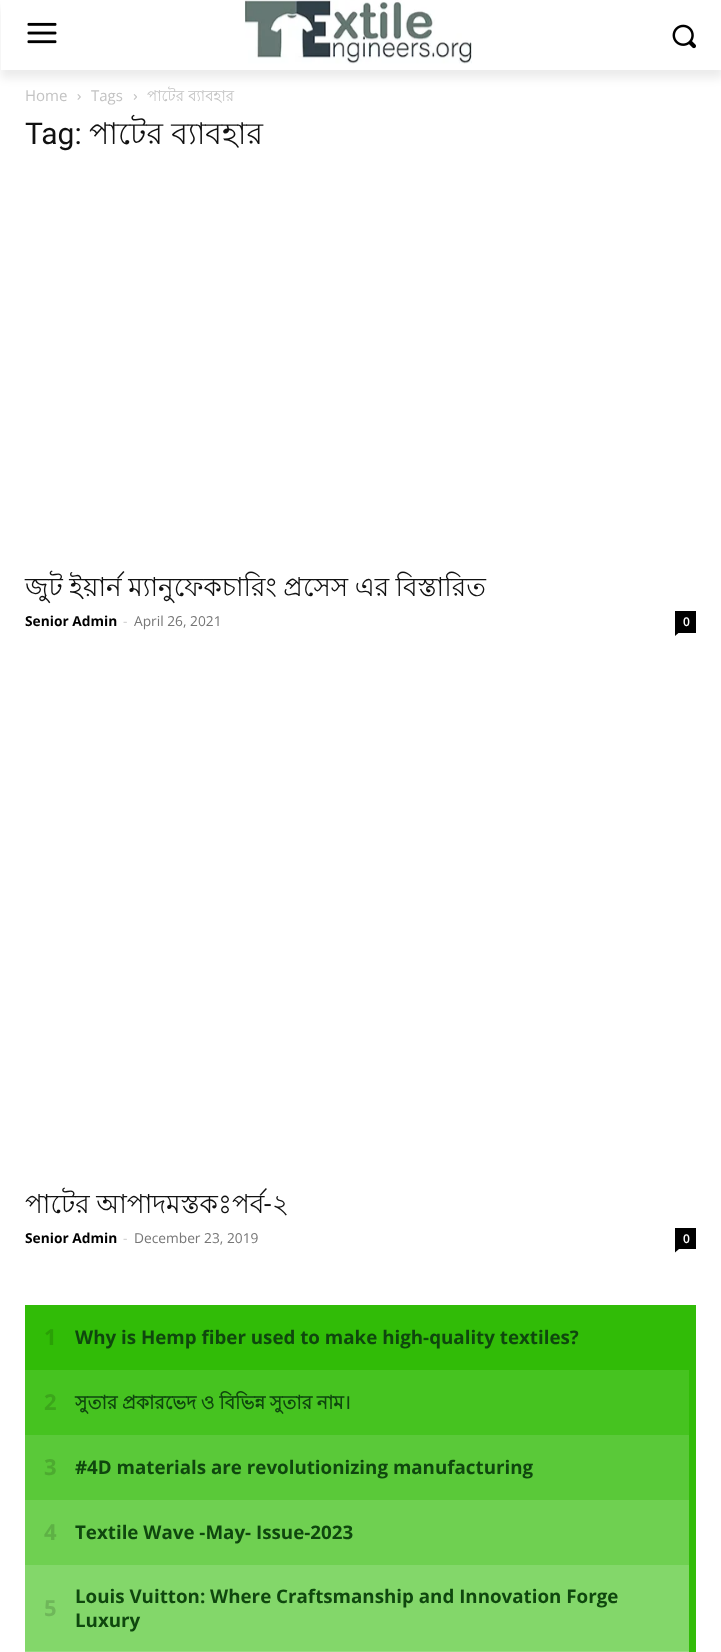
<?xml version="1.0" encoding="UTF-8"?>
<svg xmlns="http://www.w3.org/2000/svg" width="721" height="1652">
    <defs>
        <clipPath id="clip1"><path d="M 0 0 H 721 V 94 H 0 Z M 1 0 H 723 V 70 H 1 Z" clip-rule="evenodd"/></clipPath>
        <filter id="blur1" x="-50%" y="-200%" width="200%" height="500%"><feGaussianBlur stdDeviation="5"/></filter>
    </defs>
    <rect width="100%" height="100%" fill="#FFFFFF"/>
    <image x="27" y="22" width="30" height="22" href="img_01.png"/>
    <image x="244" y="0" width="228" height="64" href="img_02.png"/>
    <image x="672" y="24" width="24" height="25" href="img_03.png"/>
    <g clip-path="url(#clip1)">
        <rect x="1" y="8" width="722" height="70" fill="#000000" fill-opacity="0.08" filter="url(#blur1)"/>
    </g>
    <text x="25" y="101" font-family="Open Sans" font-size="15" fill="#C3C3C3">Home</text>
    <image x="77" y="94" width="4" height="6" href="img_04.png"/>
    <text x="91" y="101" font-family="Open Sans" font-size="15" fill="#C3C3C3">Tags</text>
    <image x="133" y="94" width="4" height="6" href="img_05.png"/>
    <text x="147" y="101" font-family="Lohit Bengali" font-size="15" fill="#C3C3C3">পাটের ব্যাবহার</text>
    <text x="25" y="144" font-family="Roboto" font-size="30" fill="#111111">Tag:</text>
    <text x="89" y="144" font-family="Lohit Bengali" font-size="30" fill="#111111">পাটের ব্যাবহার</text>
    <text x="25" y="596" word-spacing="-0.75" font-family="Lohit Bengali" font-size="26.25" fill="#111111">জুট ইয়ার্ন ম্যানুফেকচারিং প্রসেস এর বিস্তারিত</text>
    <text x="25" y="626" font-family="Open Sans" font-size="13.75" font-weight="700" fill="#000000">Senior Admin</text>
    <text x="123" y="626" font-family="Open Sans" font-size="13.75" fill="#CCCCCC">-</text>
    <text x="134" y="626" font-family="Open Sans" font-size="13.75" fill="#767676">April 26, 2021</text>
    <rect x="675" y="611" width="21" height="22" fill="#000000"/>
    <text x="683" y="626" font-family="Open Sans" font-size="12" font-weight="600" fill="#FFFFFF">0</text>
    <path d="M 675 632.5 H 679 L 675 636 Z" fill="#000000"/>
    <text x="25" y="1213" word-spacing="-0.75" font-family="Lohit Bengali" font-size="26.25" fill="#111111">পাটের আপাদমস্তকঃপর্ব</text>
    <text x="264" y="1213" font-family="Roboto" font-size="26.25" fill="#111111">-</text>
    <text x="272" y="1213" font-family="Lohit Bengali" font-size="26.25" fill="#111111">২</text>
    <text x="25" y="1243" font-family="Open Sans" font-size="13.75" font-weight="700" fill="#000000">Senior Admin</text>
    <text x="123" y="1243" font-family="Open Sans" font-size="13.75" fill="#CCCCCC">-</text>
    <text x="134" y="1243" font-family="Open Sans" font-size="13.75" fill="#767676">December 23, 2019</text>
    <rect x="675" y="1228" width="21" height="21" fill="#000000"/>
    <text x="683" y="1243" font-family="Open Sans" font-size="12" font-weight="600" fill="#FFFFFF">0</text>
    <path d="M 675 1249 H 679 L 675 1252.5 Z" fill="#000000"/>
    <rect x="689" y="1305" width="7" height="347" fill="#31BC07"/>
    <rect x="25" y="1305" width="664" height="65" fill="#31BC07"/>
    <text x="44" y="1345" font-family="Open Sans" font-size="22" font-weight="700" letter-spacing="-1" fill="#2AA006">1</text>
    <text x="75" y="1344" font-family="Open Sans" font-size="18.75" font-weight="700" fill="#0F470E">Why is Hemp fiber used to make high-quality textiles?</text>
    <rect x="25" y="1370" width="664" height="65" fill="#46C320"/>
    <text x="44" y="1410" font-family="Open Sans" font-size="22" font-weight="700" letter-spacing="-1" fill="#3CA61B">2</text>
    <text x="75" y="1409" word-spacing="-0.5" font-family="Lohit Bengali" font-size="18.75" font-weight="700" fill="#0F470E">সুতার প্রকারভেদ ও বিভিন্ন সুতার নাম।</text>
    <rect x="25" y="1435" width="664" height="65" fill="#5AC939"/>
    <text x="44" y="1475" font-family="Open Sans" font-size="22" font-weight="700" letter-spacing="-1" fill="#4DAB30">3</text>
    <text x="75" y="1474" font-family="Open Sans" font-size="18.75" font-weight="700" fill="#0F470E">#4D materials are revolutionizing manufacturing</text>
    <rect x="25" y="1500" width="664" height="65" fill="#6FD051"/>
    <text x="44" y="1540" font-family="Open Sans" font-size="22" font-weight="700" letter-spacing="-1" fill="#5EB145">4</text>
    <text x="75" y="1539" font-family="Open Sans" font-size="18.75" font-weight="700" fill="#0F470E">Textile Wave -May- Issue-2023</text>
    <rect x="25" y="1565" width="664" height="86" fill="#83D76A"/>
    <text x="44" y="1616" font-family="Open Sans" font-size="22" font-weight="700" letter-spacing="-1" fill="#6FB75A">5</text>
    <text font-family="Open Sans" font-size="18.75" font-weight="700" fill="#0F470E">
        <tspan x="75" y="1603">Louis Vuitton: Where Craftsmanship and Innovation Forge</tspan>
        <tspan x="75" y="1627">Luxury</tspan>
    </text>
    <rect x="25" y="1651" width="664" height="1" fill="#98DE83"/>
</svg>
